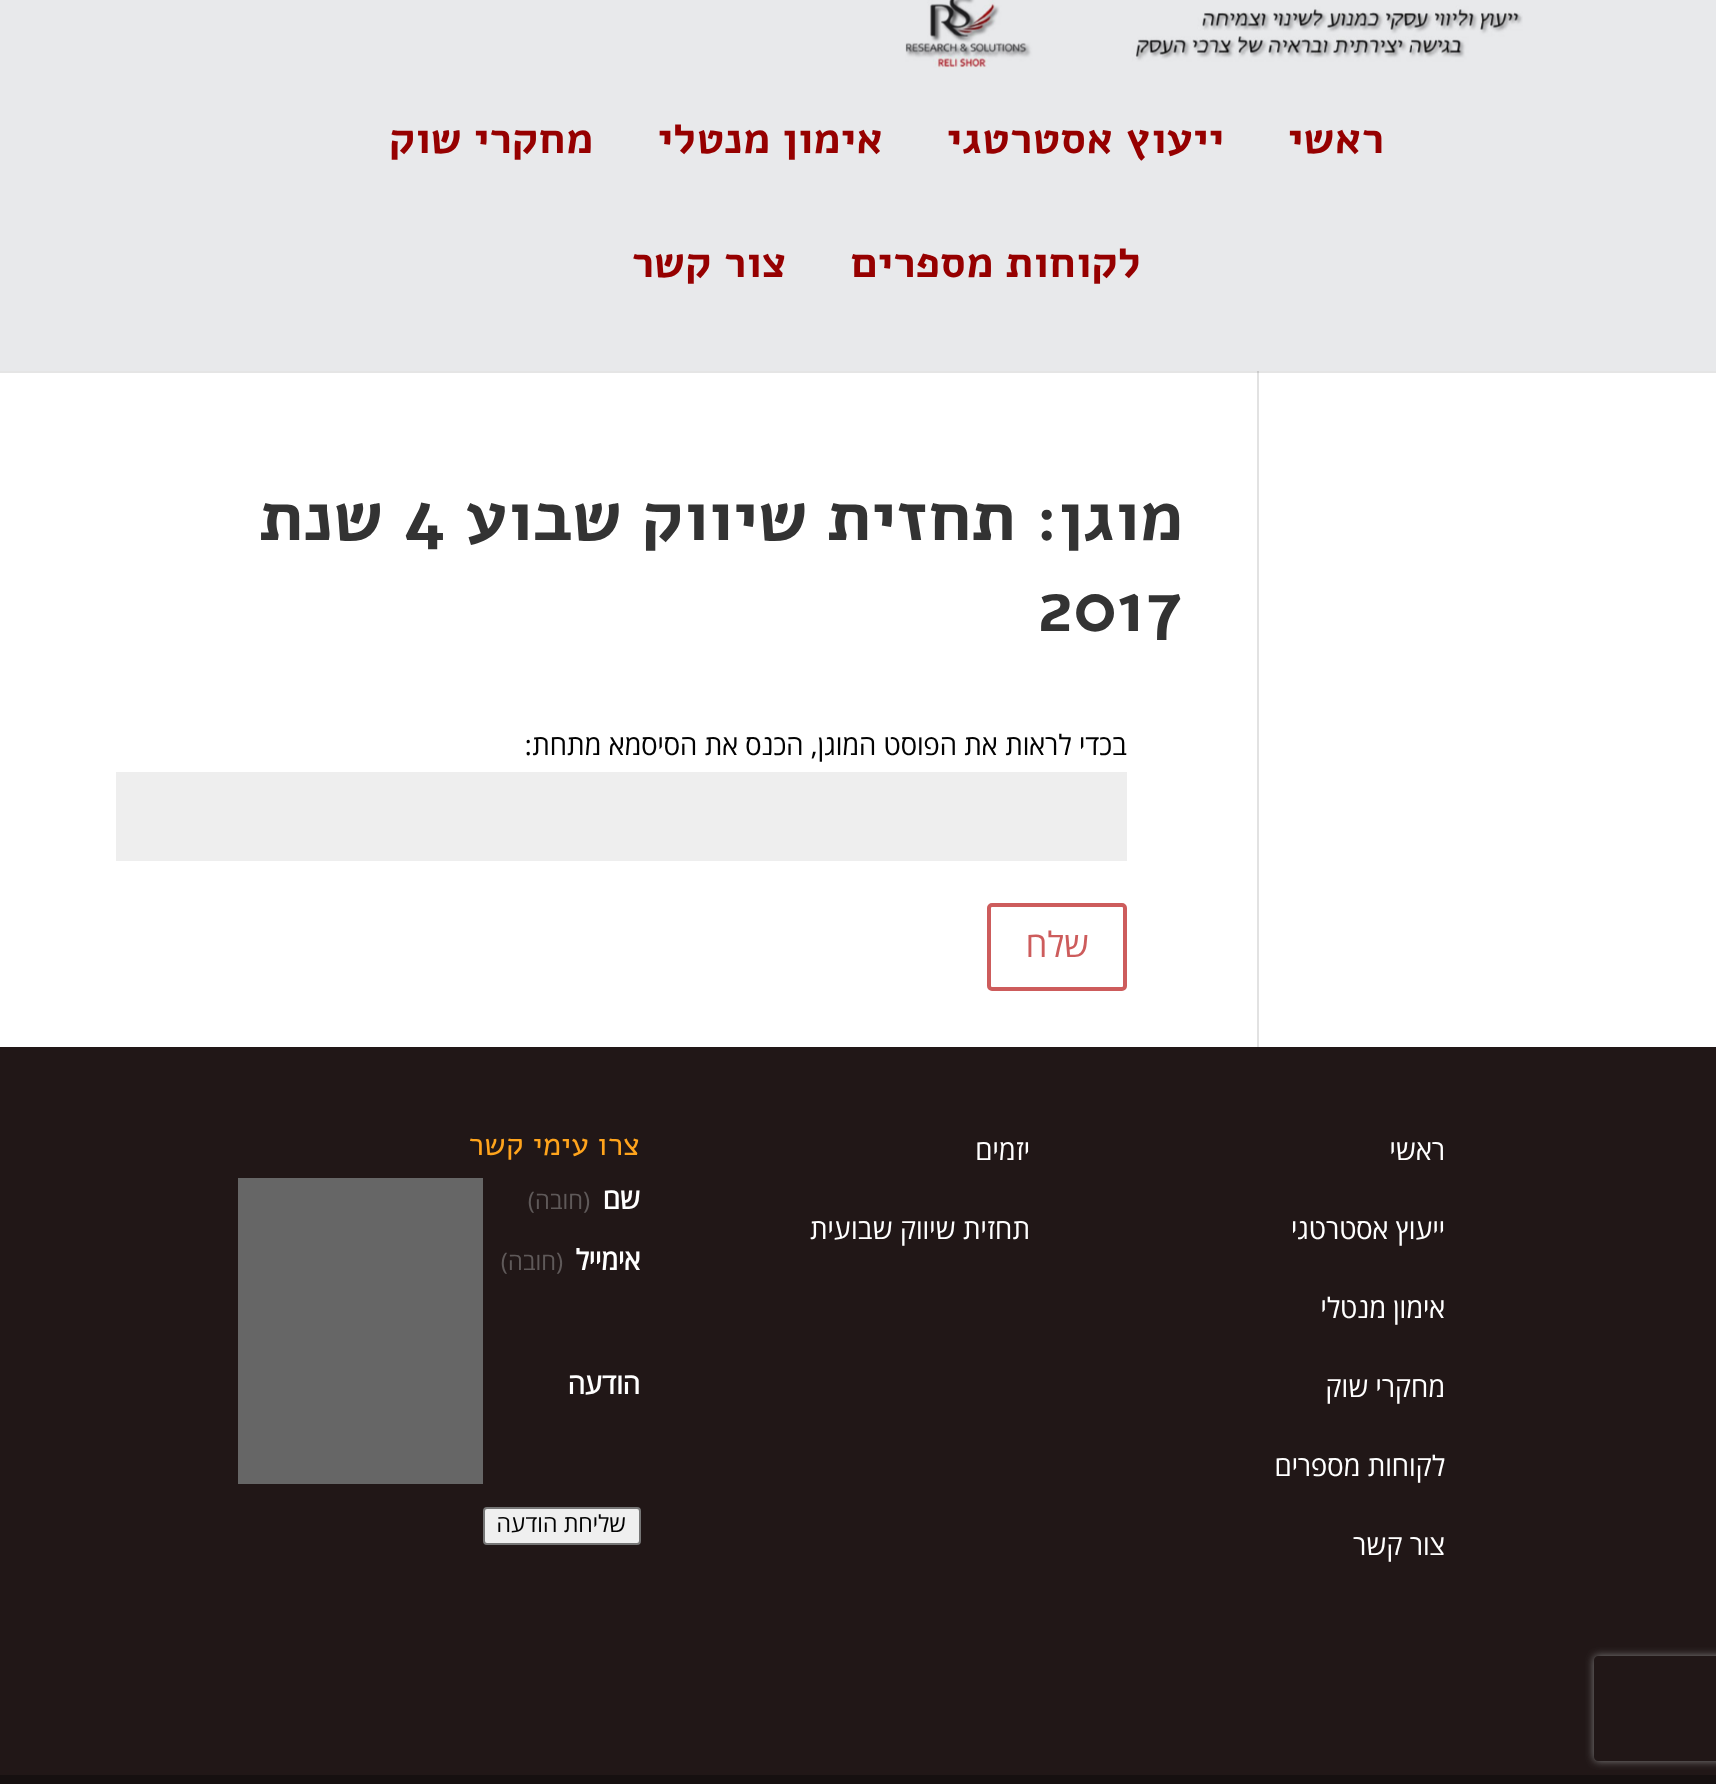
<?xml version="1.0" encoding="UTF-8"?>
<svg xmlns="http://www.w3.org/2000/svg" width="1716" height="1784">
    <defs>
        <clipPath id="clip1"><path d="M 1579 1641 H 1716 V 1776 H 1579 Z M 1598 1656 H 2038 C 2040 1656 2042 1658 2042 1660 V 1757 C 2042 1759 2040 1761 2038 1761 H 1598 C 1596 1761 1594 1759 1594 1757 V 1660 C 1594 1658 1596 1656 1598 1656 Z" clip-rule="evenodd"/></clipPath>
        <filter id="blur1" x="-50%" y="-200%" width="200%" height="500%"><feGaussianBlur stdDeviation="4.5"/></filter>
    </defs>
    <rect width="100%" height="100%" fill="#FFFFFF"/>
    <rect x="1257" y="371" width="2" height="676" fill="#E2E2E2"/>
    <path d="M 0 371 V 373 H 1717 V -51 V 371 Z" fill="#000000" fill-opacity="0.1"/>
    <rect x="0" y="0" width="1716" height="371" fill="#E8E9EB"/>
    <image x="905" y="0" width="618" height="68" href="img_01.png"/>
    <text x="1384" y="153" font-family="Alef" font-size="43.75" font-weight="700" direction="rtl" fill="#960000">ראשי</text>
    <text x="1224" y="153" font-family="Alef" font-size="43.75" font-weight="700" direction="rtl" fill="#960000">ייעוץ אסטרטגי</text>
    <text x="883" y="153" font-family="Alef" font-size="43.75" font-weight="700" direction="rtl" fill="#960000">אימון מנטלי</text>
    <text x="593" y="153" font-family="Alef" font-size="43.75" font-weight="700" direction="rtl" fill="#960000">מחקרי שוק</text>
    <text x="1141" y="277" font-family="Alef" font-size="43.75" font-weight="700" direction="rtl" fill="#960000">לקוחות מספרים</text>
    <text x="787" y="277" font-family="Alef" font-size="43.75" font-weight="700" direction="rtl" fill="#960000">צור קשר</text>
    <text x="1183" y="540" font-family="Alef" font-size="70" font-weight="700" direction="rtl" fill="#333333">מוגן: תחזית שיווק שבוע</text>
    <text x="403" y="540" font-family="Alef" font-size="70" font-weight="700" fill="#333333">4</text>
    <text x="383" y="540" font-family="Alef" font-size="70" font-weight="700" direction="rtl" fill="#333333">שנת</text>
    <text x="1037" y="631" font-family="Alef" font-size="70" font-weight="700" fill="#333333">2017</text>
    <text x="1127" y="755" font-family="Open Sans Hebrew" font-size="28" direction="rtl" fill="#020202">בכדי לראות את הפוסט המוגן, הכנס את הסיסמא מתחת:</text>
    <rect x="116" y="772" width="1011" height="89" fill="#EEEEEE"/>
    <rect x="989" y="905" width="136" height="84" rx="3" fill="none" stroke="#CD5C5C" stroke-width="4"/>
    <text x="1089" y="957" font-family="Open Sans Hebrew" font-size="35" direction="rtl" fill="#CD5C5C">שלח</text>
    <rect x="0" y="1047" width="1716" height="728" fill="#211717"/>
    <text x="1445" y="1160" font-family="Open Sans Hebrew" font-size="28" direction="rtl" fill="#FFFFFF">ראשי</text>
    <text x="1445" y="1239" font-family="Open Sans Hebrew" font-size="28" direction="rtl" fill="#FFFFFF">ייעוץ אסטרטגי</text>
    <text x="1445" y="1318" font-family="Open Sans Hebrew" font-size="28" direction="rtl" fill="#FFFFFF">אימון מנטלי</text>
    <text x="1445" y="1397" font-family="Open Sans Hebrew" font-size="28" direction="rtl" fill="#FFFFFF">מחקרי שוק</text>
    <text x="1445" y="1476" font-family="Open Sans Hebrew" font-size="28" direction="rtl" fill="#FFFFFF">לקוחות מספרים</text>
    <text x="1445" y="1555" font-family="Open Sans Hebrew" font-size="28" direction="rtl" fill="#FFFFFF">צור קשר</text>
    <text x="1030" y="1160" font-family="Open Sans Hebrew" font-size="28" direction="rtl" fill="#FFFFFF">יזמים</text>
    <text x="1030" y="1239" font-family="Open Sans Hebrew" font-size="28" direction="rtl" fill="#FFFFFF">תחזית שיווק שבועית</text>
    <text x="640" y="1155" font-family="Alef" font-size="31.5" direction="rtl" fill="#FFA41C">צרו עימי קשר</text>
    <text x="640" y="1209" font-family="Open Sans Hebrew" font-size="28" font-weight="700" direction="rtl" fill="#FFFFFF">שם</text>
    <text x="590" y="1209" font-family="Open Sans Hebrew" font-size="24" direction="rtl" fill="#5F5959">(חובה)</text>
    <rect x="238" y="1178" width="245" height="306" fill="#666666"/>
    <text x="640" y="1270" font-family="Open Sans Hebrew" font-size="28" font-weight="700" direction="rtl" fill="#FFFFFF">אימייל</text>
    <text x="563" y="1270" font-family="Open Sans Hebrew" font-size="24" direction="rtl" fill="#5F5959">(חובה)</text>
    <text x="640" y="1394" font-family="Open Sans Hebrew" font-size="28" font-weight="700" direction="rtl" fill="#FFFFFF">הודעה</text>
    <rect x="484" y="1508" width="156" height="36" rx="3" fill="#EFEFEF" stroke="#767676" stroke-width="2"/>
    <text x="626" y="1532" font-family="Open Sans Hebrew" font-size="23.5" direction="rtl" fill="#020202">שליחת הודעה</text>
    <rect x="0" y="1775" width="1716" height="9" fill="#161010"/>
    <g clip-path="url(#clip1)">
        <rect x="1594" y="1656" width="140" height="105" rx="4" fill="#808080" filter="url(#blur1)"/>
    </g>
</svg>
